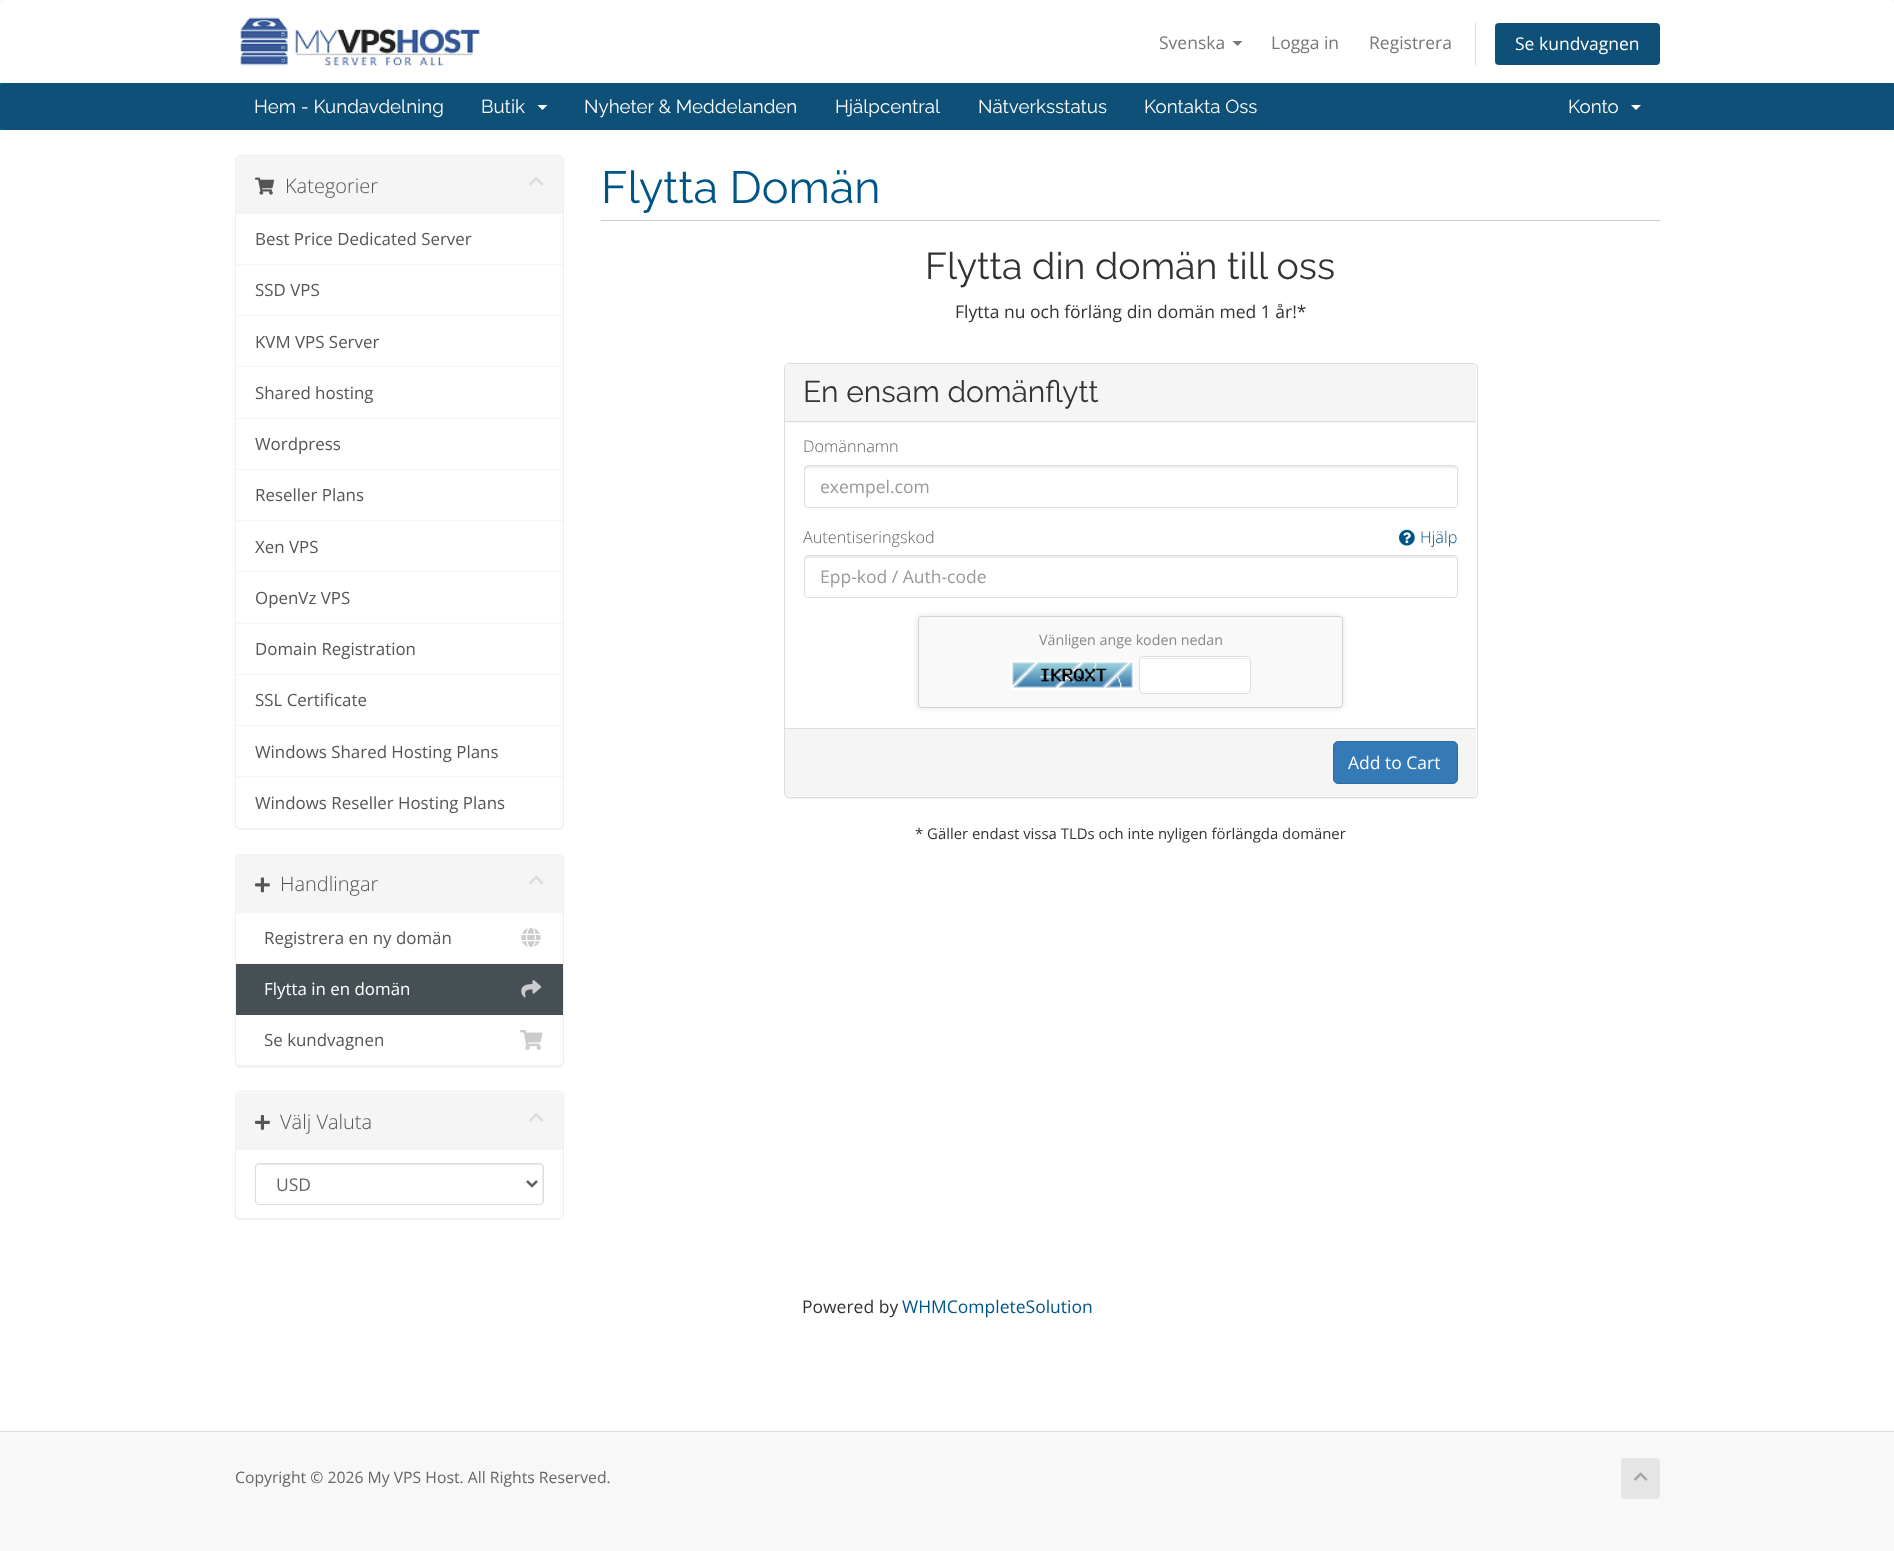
<?xml version="1.0" encoding="UTF-8"?>
<svg xmlns="http://www.w3.org/2000/svg" width="1894" height="1551">
    <defs>
        <filter id="blur1" x="-50%" y="-200%" width="200%" height="500%"><feGaussianBlur stdDeviation="0.5"/></filter>
        <filter id="blur2" x="-50%" y="-200%" width="200%" height="500%"><feGaussianBlur stdDeviation="2.5"/></filter>
    </defs>
    <rect width="100%" height="100%" fill="#F8F8F8"/>
    <path d="M 6 0 H 1889 C 1892.5 0 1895 2.5 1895 6 V 83 H 0 V 6 C 0 2.5 2.5 0 6 0 Z" fill="#FFFFFF"/>
    <image x="240" y="17" width="241" height="50" href="img_01.png"/>
    <text x="1159" y="49" font-family="Open Sans" font-size="17.5" fill="#777777">Svenska</text>
    <path d="M 1232.5 41 H 1242.5 L 1237.5 46 Z" fill="#777777"/>
    <text x="1271" y="49" font-family="Open Sans" font-size="17.5" fill="#777777">Logga in</text>
    <text x="1369" y="49" font-family="Open Sans" font-size="17.5" fill="#777777">Registrera</text>
    <rect x="1475" y="23" width="1" height="42" fill="#DDDDDD"/>
    <rect x="1495" y="23" width="165" height="42" rx="4" fill="#0E5077"/>
    <text x="1515" y="50" font-family="Open Sans" font-size="17.5" fill="#FFFFFF">Se kundvagnen</text>
    <rect x="0" y="83" width="1894" height="47" fill="#006687"/>
    <rect x="0" y="83" width="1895" height="47" rx="5" fill="#0E5077"/>
    <text x="254" y="113" font-family="Raleway" font-size="18.75" fill="#FFFFFF">Hem - Kundavdelning</text>
    <text x="481" y="113" font-family="Raleway" font-size="18.75" fill="#FFFFFF">Butik</text>
    <path d="M 537.5 105 H 547.5 L 542.5 110 Z" fill="#FFFFFF"/>
    <text x="584" y="113" font-family="Raleway" font-size="18.75" fill="#FFFFFF">Nyheter &amp; Meddelanden</text>
    <text x="835" y="113" font-family="Raleway" font-size="18.75" fill="#FFFFFF">Hjälpcentral</text>
    <text x="978" y="113" font-family="Raleway" font-size="18.75" fill="#FFFFFF">Nätverksstatus</text>
    <text x="1144" y="113" font-family="Raleway" font-size="18.75" fill="#FFFFFF">Kontakta Oss</text>
    <text x="1568" y="113" font-family="Raleway" font-size="18.75" fill="#FFFFFF">Konto</text>
    <path d="M 1631 105 H 1641 L 1636 110 Z" fill="#FFFFFF"/>
    <rect x="0" y="130" width="1894" height="1301" fill="#FFFFFF"/>
    <rect x="235" y="156" width="329" height="674" rx="5" fill="#000000" fill-opacity="0.05" filter="url(#blur1)"/>
    <rect x="235.5" y="155.5" width="328" height="673" rx="4.5" fill="#FFFFFF" stroke="#EEEEEE"/>
    <path d="M 240 156 H 559 C 561 156 563 158 563 160 V 214 H 236 V 160 C 236 158 238 156 240 156 Z" fill="#F5F5F5"/>
    <image x="255" y="177" width="20" height="18" href="img_02.png"/>
    <text x="285" y="193" font-family="Open Sans" font-size="20" font-weight="300" fill="#555555">Kategorier</text>
    <image x="529" y="177" width="15" height="9" href="img_03.png"/>
    <rect x="236" y="264" width="327" height="1" fill="#F5F5F5"/>
    <text x="255" y="245" font-family="Open Sans" font-size="16.9" fill="#555555">Best Price Dedicated Server</text>
    <rect x="236" y="315" width="327" height="1" fill="#F5F5F5"/>
    <text x="255" y="296" font-family="Open Sans" font-size="16.9" fill="#555555">SSD VPS</text>
    <rect x="236" y="366" width="327" height="1" fill="#F5F5F5"/>
    <text x="255" y="348" font-family="Open Sans" font-size="16.9" fill="#555555">KVM VPS Server</text>
    <rect x="236" y="418" width="327" height="1" fill="#F5F5F5"/>
    <text x="255" y="399" font-family="Open Sans" font-size="16.9" fill="#555555">Shared hosting</text>
    <rect x="236" y="469" width="327" height="1" fill="#F5F5F5"/>
    <text x="255" y="450" font-family="Open Sans" font-size="16.9" fill="#555555">Wordpress</text>
    <rect x="236" y="520" width="327" height="1" fill="#F5F5F5"/>
    <text x="255" y="501" font-family="Open Sans" font-size="16.9" fill="#555555">Reseller Plans</text>
    <rect x="236" y="571" width="327" height="1" fill="#F5F5F5"/>
    <text x="255" y="553" font-family="Open Sans" font-size="16.9" fill="#555555">Xen VPS</text>
    <rect x="236" y="623" width="327" height="1" fill="#F5F5F5"/>
    <text x="255" y="604" font-family="Open Sans" font-size="16.9" fill="#555555">OpenVz VPS</text>
    <rect x="236" y="674" width="327" height="1" fill="#F5F5F5"/>
    <text x="255" y="655" font-family="Open Sans" font-size="16.9" fill="#555555">Domain Registration</text>
    <rect x="236" y="725" width="327" height="1" fill="#F5F5F5"/>
    <text x="255" y="706" font-family="Open Sans" font-size="16.9" fill="#555555">SSL Certificate</text>
    <rect x="236" y="776" width="327" height="1" fill="#F5F5F5"/>
    <text x="255" y="758" font-family="Open Sans" font-size="16.9" fill="#555555">Windows Shared Hosting Plans</text>
    <path d="M 236 778 H 563 V 824 C 563 826 561 828 559 828 H 240 C 238 828 236 826 236 824 Z" fill="#FFFFFF"/>
    <text x="255" y="809" font-family="Open Sans" font-size="16.9" fill="#555555">Windows Reseller Hosting Plans</text>
    <rect x="235" y="855" width="329" height="213" rx="5" fill="#000000" fill-opacity="0.05" filter="url(#blur1)"/>
    <rect x="235.5" y="854.5" width="328" height="211" rx="4.5" fill="#FFFFFF" stroke="#EEEEEE"/>
    <path d="M 240 855 H 559 C 561 855 563 857 563 859 V 913 H 236 V 859 C 236 857 238 855 240 855 Z" fill="#F5F5F5"/>
    <image x="255" y="877" width="15" height="16" href="img_04.png"/>
    <text x="280" y="891" font-family="Open Sans" font-size="20" font-weight="300" fill="#555555">Handlingar</text>
    <image x="529" y="875" width="15" height="10" href="img_05.png"/>
    <rect x="236" y="963" width="327" height="1" fill="#F5F5F5"/>
    <text x="264" y="944" font-family="Open Sans" font-size="16.9" fill="#555555">Registrera en ny domän</text>
    <image x="521" y="927" width="20" height="21" href="img_06.png"/>
    <rect x="236" y="964" width="327" height="51" fill="#465054"/>
    <text x="264" y="995" font-family="Open Sans" font-size="16.9" fill="#FFFFFF">Flytta in en domän</text>
    <image x="521" y="980" width="21" height="18" href="img_07.png"/>
    <path d="M 236 1015 H 563 V 1061 C 563 1063 561 1065 559 1065 H 240 C 238 1065 236 1063 236 1061 Z" fill="#FFFFFF"/>
    <text x="264" y="1046" font-family="Open Sans" font-size="16.9" fill="#555555">Se kundvagnen</text>
    <image x="520" y="1030" width="23" height="20" href="img_08.png"/>
    <rect x="235" y="1093" width="329" height="127" rx="5" fill="#000000" fill-opacity="0.05" filter="url(#blur1)"/>
    <rect x="235.5" y="1091.5" width="328" height="127" rx="4.5" fill="#FFFFFF" stroke="#EEEEEE"/>
    <path d="M 240 1093 H 559 C 561 1093 563 1095 563 1097 V 1150 H 236 V 1097 C 236 1095 238 1093 240 1093 Z" fill="#F5F5F5"/>
    <image x="255" y="1114" width="15" height="16" href="img_09.png"/>
    <text x="280" y="1129" font-family="Open Sans" font-size="20" font-weight="300" fill="#555555">Välj Valuta</text>
    <image x="529" y="1113" width="15" height="9" href="img_10.png"/>
    <path d="M 259 1165 H 540 C 544 1165 542 1178 542 1179 V 1204 C 542 1203 543 1202 543 1202 V 1166 C 543 1165 542 1164 540 1164 H 258 C 257 1164 256 1165 256 1166 V 1168 C 256 1166 257 1165 259 1165 Z" fill="#ECECEC"/>
    <rect x="255.5" y="1163.5" width="288" height="41" rx="3.5" fill="none" stroke="#DDDDDD"/>
    <path d="M 527 1181 L 532 1186 L 537 1181" fill="none" stroke="#626262" stroke-width="2.5"/>
    <text x="276" y="1191" font-family="Open Sans" font-size="17.5" fill="#666666">USD</text>
    <rect x="601" y="220" width="1059" height="1" fill="#CCCCCC"/>
    <text x="601" y="203" font-family="Raleway" font-size="45" fill="#005588">Flytta Domän</text>
    <text x="925" y="279" font-family="Raleway" font-size="37.5" fill="#333333">Flytta din domän till oss</text>
    <text x="955" y="318" font-family="Open Sans" font-size="17.5" fill="#333333">Flytta nu och förläng din domän med 1 år!*</text>
    <rect x="784" y="364" width="694" height="435" rx="5" fill="#000000" fill-opacity="0.05" filter="url(#blur1)"/>
    <rect x="784.5" y="363.5" width="693" height="434" rx="4.5" fill="#FFFFFF" stroke="#DDDDDD"/>
    <path d="M 789 364 H 1472 C 1474 364 1476 366 1476 368 V 423 H 785 V 368 C 785 366 787 364 789 364 Z" fill="#F5F5F5"/>
    <rect x="785" y="421" width="691" height="1" fill="#DDDDDD"/>
    <text x="803" y="402" font-family="Raleway" font-size="30" fill="#333333">En ensam domänflytt</text>
    <text x="803" y="452" font-family="Open Sans" font-size="16.25" font-weight="300" fill="#666666">Domännamn</text>
    <path d="M 808 468 H 1454 C 1455 468 1456 469 1456 470 C 1456 468 1456 466 1454 466 H 808 C 805 466 805 468 805 470 C 805 469 806 468 808 468 Z" fill="#ECECEC"/>
    <rect x="804.5" y="465.5" width="653" height="42" rx="3.5" fill="none" stroke="#DDDDDD"/>
    <text x="820" y="493" font-family="Open Sans" font-size="17.5" fill="#999999">exempel.com</text>
    <text x="803" y="543" font-family="Open Sans" font-size="16.25" font-weight="300" fill="#666666">Autentiseringskod</text>
    <image x="1399" y="529" width="16" height="17" href="img_11.png"/>
    <text x="1420" y="543" font-family="Open Sans" font-size="16.25" font-weight="300" fill="#005588">Hjälp</text>
    <path d="M 808 558 H 1454 C 1455 558 1456 559 1456 560 C 1456 558 1456 556 1454 556 H 808 C 805 556 805 558 805 560 C 805 559 806 558 808 558 Z" fill="#ECECEC"/>
    <rect x="804.5" y="555.5" width="653" height="42" rx="3.5" fill="none" stroke="#DDDDDD"/>
    <text x="820" y="583" font-family="Open Sans" font-size="17.5" fill="#999999">Epp-kod / Auth-code</text>
    <rect x="916" y="615" width="428" height="94" rx="5" fill="#000000" fill-opacity="0.08" filter="url(#blur2)"/>
    <rect x="918.5" y="616.5" width="424" height="91" rx="3.5" fill="#F9F9F9" stroke="#D3D3D3"/>
    <text x="1039" y="645" font-family="Open Sans" font-size="14.25" fill="#888888">Vänligen ange koden nedan</text>
    <image x="1010" y="660" width="125" height="30" href="img_12.png"/>
    <rect x="1139" y="656" width="112" height="38" rx="4" fill="#FFFFFF"/>
    <path d="M 1142 659 H 1248 C 1249 659 1250 660 1250 661 C 1250 659 1249 658 1248 658 H 1142 C 1141 658 1140 660 1140 661 C 1140 660 1141 659 1142 659 Z" fill="#ECECEC"/>
    <rect x="1139.5" y="656.5" width="111" height="37" rx="3.5" fill="none" stroke="#DDDDDD"/>
    <path d="M 785 728 H 1476 V 792 C 1476 794 1474 796 1472 796 H 789 C 787 796 785 794 785 792 Z" fill="#F5F5F5"/>
    <rect x="785" y="728" width="691" height="1" fill="#DDDDDD"/>
    <rect x="1333.5" y="741.5" width="124" height="42" rx="4.5" fill="#337AB7" stroke="#2E6DA4"/>
    <text x="1348" y="769" font-family="Open Sans" font-size="17.5" fill="#FFFFFF">Add to Cart</text>
    <text x="915" y="839" font-family="Open Sans" font-size="14.9" fill="#333333">* Gäller endast vissa TLDs och inte nyligen förlängda domäner</text>
    <text x="802" y="1313" font-family="Open Sans" font-size="17.5" fill="#333333">Powered by</text>
    <text x="902" y="1313" font-family="Open Sans" font-size="17.5" fill="#005588">WHMCompleteSolution</text>
    <rect x="0" y="1431" width="1894" height="1" fill="#DDDDDD"/>
    <text x="235" y="1483" font-family="Open Sans" font-size="15.75" fill="#666666">Copyright © 2026 My VPS Host. All Rights Reserved.</text>
    <rect x="1621" y="1458" width="39" height="41" rx="4" fill="#E5E5E5"/>
    <image x="1634" y="1472" width="14" height="9" href="img_13.png"/>
</svg>
